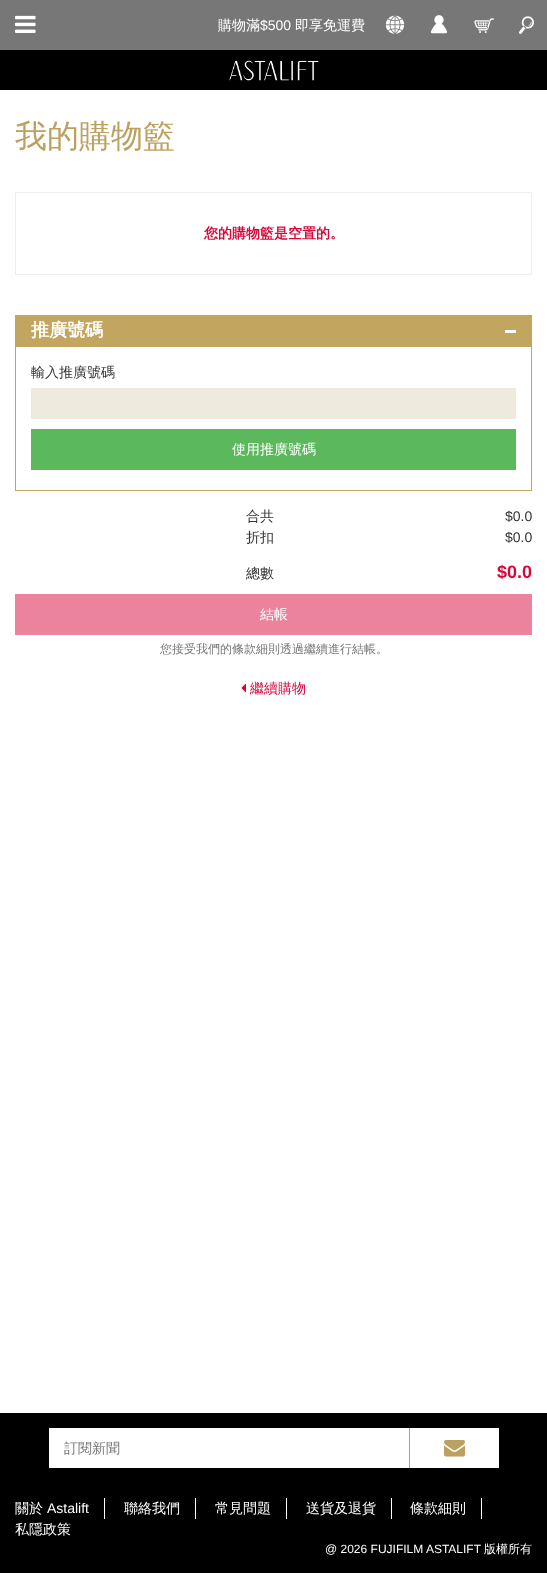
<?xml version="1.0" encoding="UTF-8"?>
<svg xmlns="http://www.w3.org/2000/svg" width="547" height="1573">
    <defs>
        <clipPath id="clip1"><rect x="64" y="1440" width="330" height="18"/></clipPath>
    </defs>
    <rect width="100%" height="100%" fill="#FFFFFF"/>
    <rect x="0" y="0" width="547" height="50" fill="#777777"/>
    <image x="15" y="15" width="21" height="18" href="img_01.png"/>
    <text x="218" y="30" font-family="WenQuanYi Zen Hei" font-size="14" font-weight="500" fill="#FFFFFF">購物滿</text>
    <text x="260" y="30" font-family="Liberation Sans" font-size="14" fill="#FFFFFF">$500</text>
    <text x="295" y="30" font-family="WenQuanYi Zen Hei" font-size="14" font-weight="500" fill="#FFFFFF">即享免運費</text>
    <image x="385" y="15" width="20" height="19" href="img_02.png"/>
    <image x="430" y="15" width="18" height="19" href="img_03.png"/>
    <image x="474" y="18" width="20" height="15" href="img_04.png"/>
    <image x="519" y="16" width="15" height="18" href="img_05.png"/>
    <rect x="0" y="50" width="547" height="40" fill="#000000"/>
    <image x="229" y="60" width="90" height="21" href="img_06.png"/>
    <text x="15" y="147" font-family="WenQuanYi Zen Hei" font-size="32" font-weight="500" fill="#BCA05F">我的購物籃</text>
    <rect x="15.5" y="192.5" width="516" height="82" fill="none" stroke="#EEEEEE"/>
    <text x="204" y="238" font-family="WenQuanYi Zen Hei" font-size="14" font-weight="700" fill="#D7073B">您的購物籃是空置的。</text>
    <rect x="15.5" y="315.5" width="516" height="175" fill="none" stroke="#C2A55F"/>
    <rect x="16" y="316" width="515" height="31" fill="#C2A55F"/>
    <text x="31" y="336" font-family="WenQuanYi Zen Hei" font-size="18" font-weight="700" fill="#FFFFFF">推廣號碼</text>
    <rect x="505" y="330" width="11" height="3" fill="#FFFFFF"/>
    <text x="31" y="377" font-family="WenQuanYi Zen Hei" font-size="14" font-weight="500" fill="#333333">輸入推廣號碼</text>
    <rect x="31" y="388" width="485" height="31" fill="#EFEADE"/>
    <rect x="31" y="429" width="485" height="41" fill="#5CB85C"/>
    <text x="232" y="454" font-family="WenQuanYi Zen Hei" font-size="14" font-weight="500" fill="#FFFFFF">使用推廣號碼</text>
    <text x="246" y="521" font-family="WenQuanYi Zen Hei" font-size="14" font-weight="500" fill="#333333">合共</text>
    <text x="505" y="521" font-family="Liberation Sans" font-size="14" fill="#333333">$0.0</text>
    <text x="246" y="542" font-family="WenQuanYi Zen Hei" font-size="14" font-weight="500" fill="#333333">折扣</text>
    <text x="505" y="542" font-family="Liberation Sans" font-size="14" fill="#333333">$0.0</text>
    <text x="246" y="578" font-family="WenQuanYi Zen Hei" font-size="14" font-weight="500" fill="#333333">總數</text>
    <text x="497" y="578" font-family="Liberation Sans" font-size="18" font-weight="700" fill="#D7073B">$0.0</text>
    <rect x="15" y="594" width="517" height="41" fill="#EB839D"/>
    <text x="260" y="619" font-family="WenQuanYi Zen Hei" font-size="14" font-weight="500" fill="#FFFFFF">結帳</text>
    <text x="160" y="653" font-family="WenQuanYi Zen Hei" font-size="12" font-weight="500" fill="#777777">您接受我們的條款細則透過繼續進行結帳。</text>
    <image x="241" y="684" width="5" height="8" href="img_07.png"/>
    <text x="250" y="693" font-family="WenQuanYi Zen Hei" font-size="14" font-weight="500" fill="#D7073B">繼續購物</text>
    <rect x="0" y="1413" width="547" height="160" fill="#000000"/>
    <rect x="49" y="1428" width="360" height="40" fill="#FFFFFF"/>
    <g clip-path="url(#clip1)">
        <text x="64" y="1453" font-family="WenQuanYi Zen Hei" font-size="14" font-weight="500" fill="#777777">訂閱新聞</text>
    </g>
    <rect x="410" y="1428" width="89" height="40" fill="#FFFFFF"/>
    <rect x="409" y="1428" width="1" height="40" fill="#BCA05F"/>
    <image x="444" y="1440" width="21" height="17" href="img_08.png"/>
    <rect x="104" y="1498" width="1" height="21" fill="#FFFFFF"/>
    <text x="15" y="1513" font-family="WenQuanYi Zen Hei" font-size="14" font-weight="500" fill="#FFFFFF">關於</text>
    <text x="47" y="1513" font-family="Liberation Sans" font-size="14" fill="#FFFFFF">Astalift</text>
    <rect x="195" y="1498" width="1" height="21" fill="#FFFFFF"/>
    <text x="124" y="1513" font-family="WenQuanYi Zen Hei" font-size="14" font-weight="500" fill="#FFFFFF">聯絡我們</text>
    <rect x="286" y="1498" width="1" height="21" fill="#FFFFFF"/>
    <text x="215" y="1513" font-family="WenQuanYi Zen Hei" font-size="14" font-weight="500" fill="#FFFFFF">常見問題</text>
    <rect x="391" y="1498" width="1" height="21" fill="#FFFFFF"/>
    <text x="306" y="1513" font-family="WenQuanYi Zen Hei" font-size="14" font-weight="500" fill="#FFFFFF">送貨及退貨</text>
    <rect x="481" y="1498" width="1" height="21" fill="#FFFFFF"/>
    <text x="410" y="1513" font-family="WenQuanYi Zen Hei" font-size="14" font-weight="500" fill="#FFFFFF">條款細則</text>
    <text x="15" y="1534" font-family="WenQuanYi Zen Hei" font-size="14" font-weight="500" fill="#FFFFFF">私隱政策</text>
    <text x="325" y="1553" font-family="Liberation Sans" font-size="12" fill="#FFFFFF">@ 2026 FUJIFILM ASTALIFT</text>
    <text x="484" y="1553" font-family="WenQuanYi Zen Hei" font-size="12" font-weight="500" fill="#FFFFFF">版權所有</text>
</svg>
